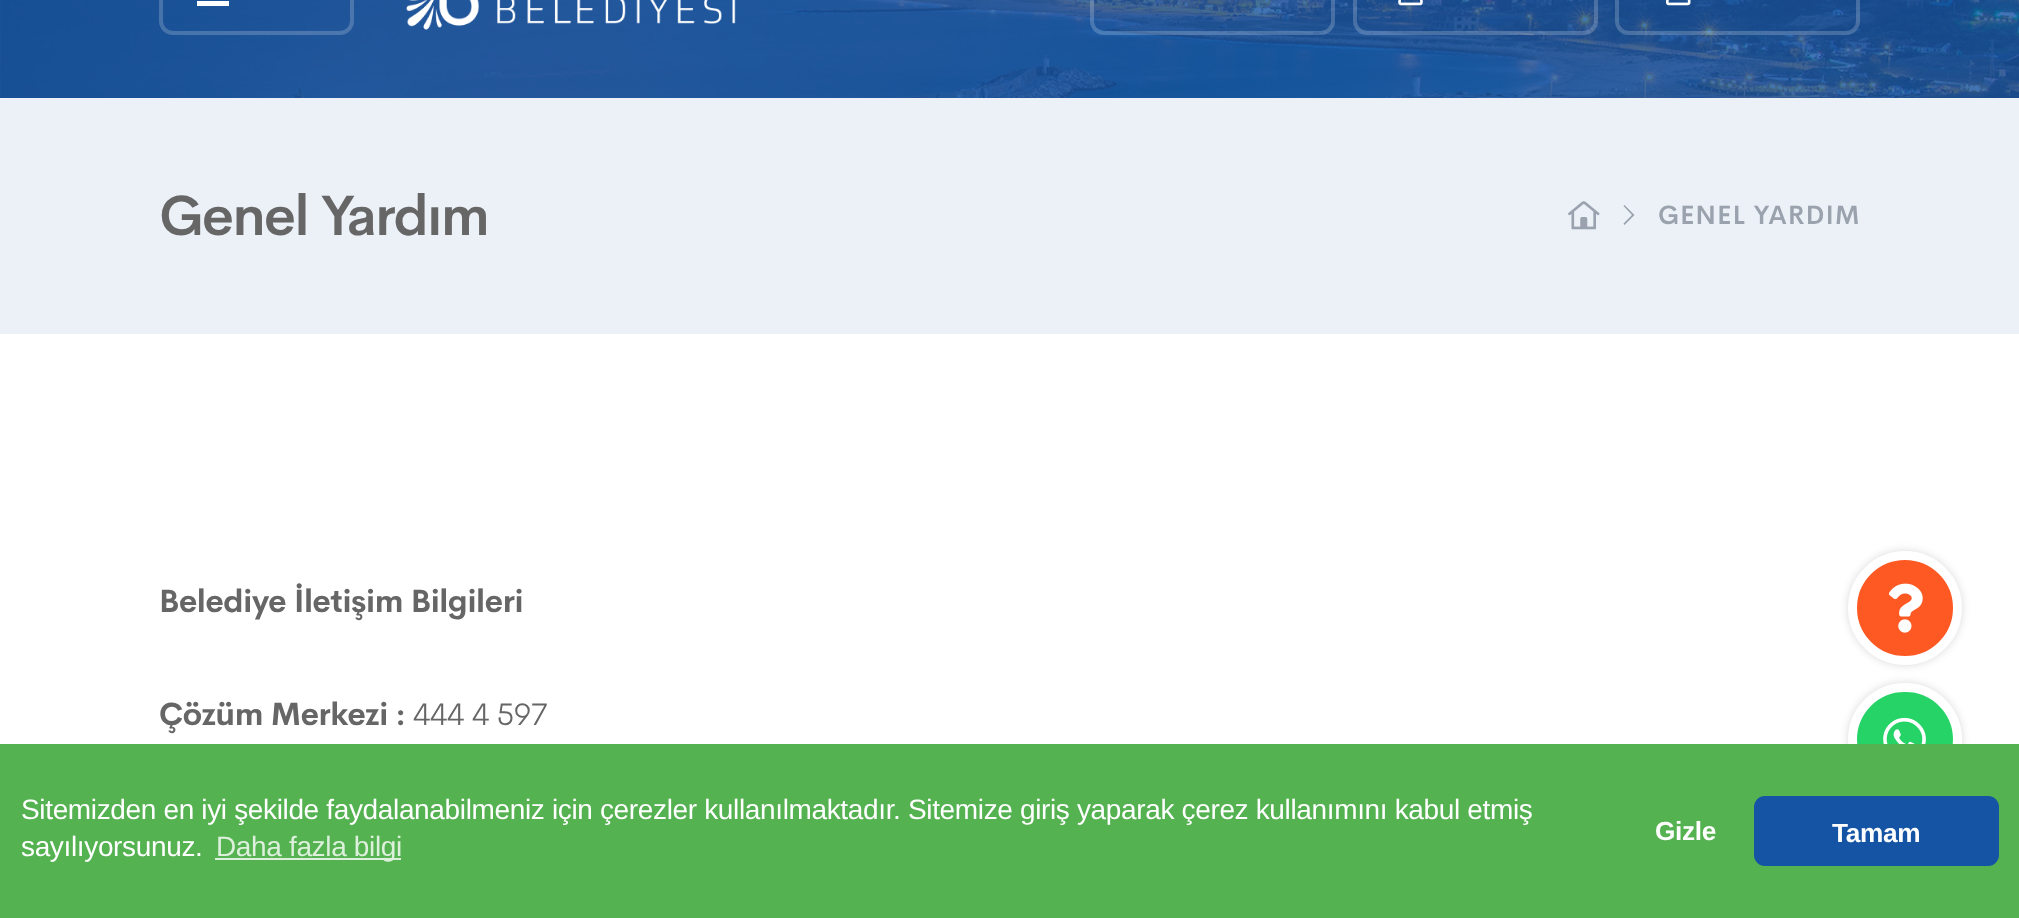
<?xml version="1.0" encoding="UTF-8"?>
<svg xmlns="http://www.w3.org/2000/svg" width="2019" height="918">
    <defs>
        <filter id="blur1" x="-50%" y="-200%" width="200%" height="500%"><feGaussianBlur stdDeviation="4.5"/></filter>
    </defs>
    <rect width="100%" height="100%" fill="#FFFFFF"/>
    <rect x="0" y="0" width="2019" height="98" fill="#1553A4"/>
    <image x="0" y="0" width="2019" height="98" href="img_04.png"/>
    <rect x="161" y="-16" width="191" height="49" rx="12" fill="none" stroke="#FFFFFF" stroke-opacity="0.2" stroke-width="4"/>
    <rect x="197" y="1" width="32" height="5" fill="#FFFFFF"/>
    <image x="406" y="0" width="330" height="30" href="img_01.png"/>
    <rect x="1092" y="-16" width="241" height="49" rx="12" fill="none" stroke="#FFFFFF" stroke-opacity="0.2" stroke-width="4"/>
    <rect x="1355" y="-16" width="241" height="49" rx="12" fill="none" stroke="#FFFFFF" stroke-opacity="0.2" stroke-width="4"/>
    <image x="1398" y="0" width="25" height="6" href="img_02.png"/>
    <rect x="1617" y="-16" width="241" height="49" rx="12" fill="none" stroke="#FFFFFF" stroke-opacity="0.2" stroke-width="4"/>
    <image x="1666" y="0" width="25" height="6" href="img_03.png"/>
    <rect x="0" y="98" width="2019" height="236" fill="#ECF0F7"/>
    <text x="159" y="235" font-family="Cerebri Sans" font-size="56" font-weight="600" letter-spacing="-1.75" fill="#666666">Genel Yardım</text>
    <image x="1568" y="201" width="32" height="29" href="img_05.png"/>
    <path d="M 1624.5 205 L 1634.5 215 H 1632 L 1623.5 206 Z M 1634.5 215 L 1624.5 225 L 1623.5 223.5 L 1632 215 Z" fill="#9AA2AE"/>
    <text x="1658" y="224" font-family="Cerebri Sans" font-size="26.25" font-weight="600" letter-spacing="0.9" fill="#9AA2AE">GENEL YARDIM</text>
    <text x="159" y="612" font-family="Cerebri Sans" font-size="31.5" font-weight="700" letter-spacing="-0.35" fill="#666666">Belediye İletişim Bilgileri</text>
    <text x="159" y="725" font-family="Cerebri Sans" font-size="31.5" font-weight="700" letter-spacing="-0.35" fill="#666666">Çözüm Merkezi :</text>
    <text x="413" y="725" font-family="Cerebri Sans" font-size="31.5" font-weight="300" letter-spacing="-0.35" fill="#666666">444 4 597</text>
    <rect x="1848" y="551" width="114" height="114" rx="57" fill="#000000" fill-opacity="0.15" filter="url(#blur1)"/>
    <circle cx="1905" cy="608" r="52.5" fill="#FE5923" stroke="#FFFFFF" stroke-width="9"/>
    <image x="1888" y="583" width="35" height="50" href="img_06.png"/>
    <rect x="1848" y="683" width="114" height="113" rx="56.5" fill="#000000" fill-opacity="0.15" filter="url(#blur1)"/>
    <rect x="1852.5" y="687.5" width="105" height="104" rx="52" fill="#25D366" stroke="#FFFFFF" stroke-width="9"/>
    <image x="1883" y="717" width="43" height="27" href="img_07.png"/>
    <rect x="0" y="744" width="2019" height="174" fill="#54B251"/>
    <text font-family="Liberation Sans" font-size="28" letter-spacing="-0.35" fill="#FFFFFF">
        <tspan x="21" y="819">Sitemizden en iyi şekilde faydalanabilmeniz için çerezler kullanılmaktadır. Sitemize giriş yaparak çerez kullanımını kabul etmiş</tspan>
        <tspan x="21" y="856">sayılıyorsunuz.</tspan>
    </text>
    <rect x="215" y="858" width="186" height="2" fill="#DDF0DC"/>
    <text x="216" y="856" font-family="Liberation Sans" font-size="28" letter-spacing="-0.35" fill="#DDF0DC">Daha fazla bilgi</text>
    <text x="1655" y="840" font-family="Liberation Sans" font-size="26.25" font-weight="700" letter-spacing="-0.35" fill="#FFFFFF">Gizle</text>
    <rect x="1754" y="796" width="245" height="70" rx="11" fill="#1554A4"/>
    <text x="1832" y="842" font-family="Liberation Sans" font-size="26.25" font-weight="700" letter-spacing="-0.35" fill="#FFFFFF">Tamam</text>
</svg>
